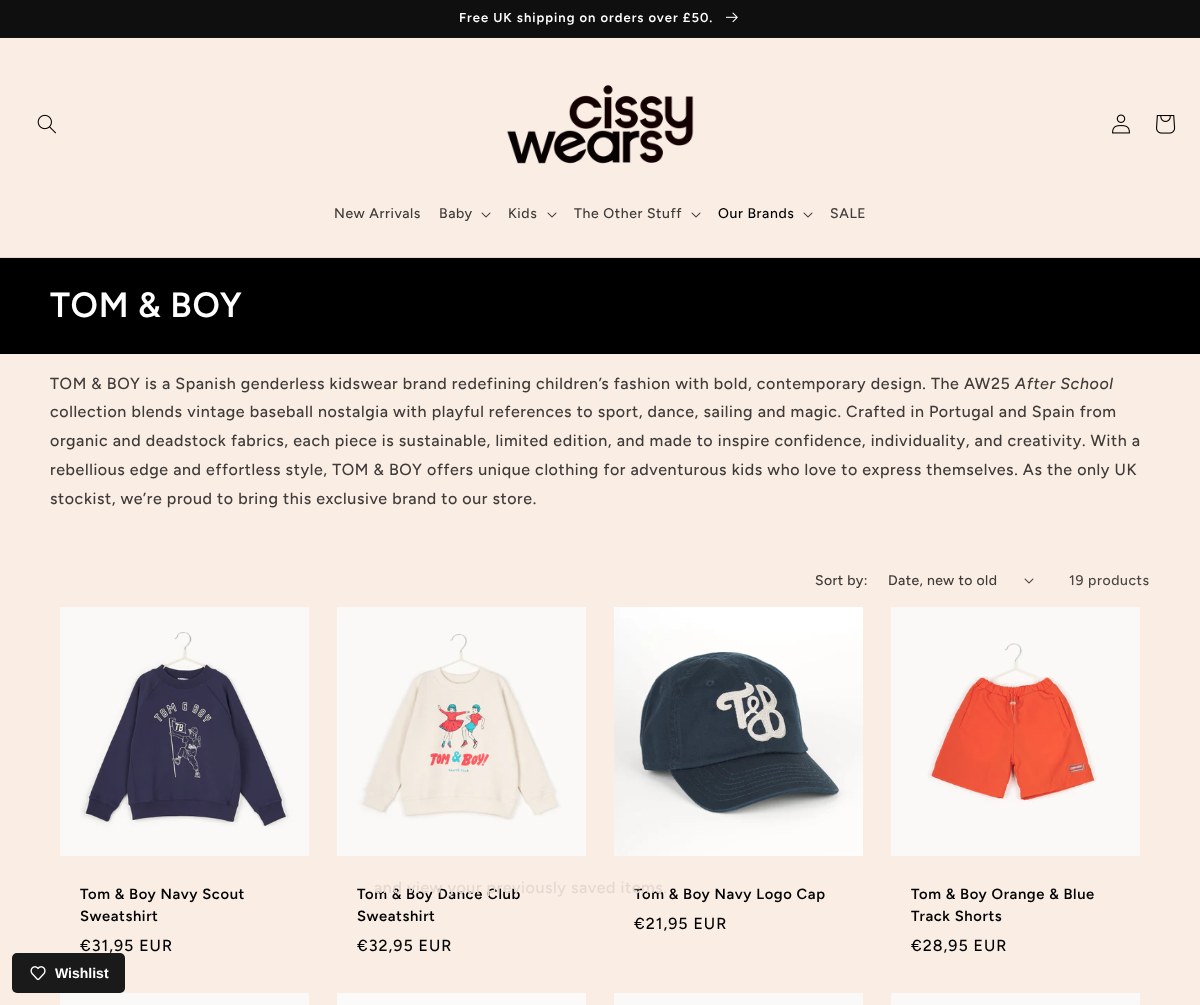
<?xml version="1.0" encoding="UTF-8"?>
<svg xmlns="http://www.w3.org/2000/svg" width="1200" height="1005">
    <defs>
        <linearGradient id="g1" gradientUnits="userSpaceOnUse" x1="-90" y1="278" x2="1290" y2="727"><stop offset="1" stop-color="#000000"/><stop offset="1" stop-color="#D7CCFA"/><stop offset="1" stop-color="#F7C5CC"/></linearGradient>
    </defs>
    <rect width="100%" height="100%" fill="#FAEDE4"/>
    <rect x="0" y="37" width="1200" height="1" fill="#141414"/>
    <rect x="0" y="0" width="1200" height="37" fill="#0F0F0F"/>
    <text x="459" y="22" font-family="Figtree" font-size="13" font-weight="600" letter-spacing="1" fill="#FFFFFF">Free UK shipping on orders over £50.</text>
    <image x="726" y="12" width="12" height="11" href="img_01.png"/>
    <rect x="0" y="257" width="1200" height="1" fill="#E6DAD2"/>
    <image x="37" y="114" width="19" height="20" href="img_02.png"/>
    <image x="507" y="85" width="187" height="79" href="img_03.png"/>
    <image x="1112" y="114" width="18" height="20" href="img_04.png"/>
    <image x="1156" y="115" width="20" height="19" href="img_05.png"/>
    <text x="334" y="218" font-family="Figtree" font-size="14" font-weight="500" letter-spacing="0.6" fill="#3F3B39">New Arrivals</text>
    <text x="439" y="218" font-family="Figtree" font-size="14" font-weight="500" letter-spacing="0.6" fill="#3F3B39">Baby</text>
    <image x="481" y="212" width="10" height="6" href="img_06.png"/>
    <text x="508" y="218" font-family="Figtree" font-size="14" font-weight="500" letter-spacing="0.6" fill="#3F3B39">Kids</text>
    <image x="547" y="212" width="10" height="6" href="img_06.png"/>
    <text x="574" y="218" font-family="Figtree" font-size="14" font-weight="500" letter-spacing="0.6" fill="#3F3B39">The Other Stuff</text>
    <image x="691" y="212" width="10" height="6" href="img_06.png"/>
    <text x="718" y="218" font-family="Figtree" font-size="14" font-weight="500" letter-spacing="0.6" fill="#000000">Our Brands</text>
    <image x="803" y="212" width="10" height="6" href="img_06.png"/>
    <text x="830" y="218" font-family="Figtree" font-size="14" font-weight="500" letter-spacing="0.6" fill="#3F3B39">SALE</text>
    <rect x="0" y="258" width="1200" height="96" fill="url(#g1)"/>
    <text x="50" y="317" font-family="Figtree" font-size="35" font-weight="600" letter-spacing="0.6" fill="#FFFFFF">TOM &amp; BOY</text>
    <text x="50" y="389" font-family="Figtree" font-size="16" font-weight="500" letter-spacing="0.6" fill="#3F3B39">TOM &amp; BOY is a Spanish genderless kidswear brand redefining children’s fashion with bold, contemporary design. The AW25</text>
    <text x="1015" y="389" font-family="Figtree" font-size="16" font-weight="500" font-style="italic" letter-spacing="0.6" fill="#3F3B39">After School</text>
    <text font-family="Figtree" font-size="16" font-weight="500" letter-spacing="0.6" fill="#3F3B39">
        <tspan x="50" y="417">collection blends vintage baseball nostalgia with playful references to sport, dance, sailing and magic. Crafted in Portugal and Spain from</tspan>
        <tspan x="50" y="446">organic and deadstock fabrics, each piece is sustainable, limited edition, and made to inspire confidence, individuality, and creativity. With a</tspan>
        <tspan x="50" y="475">rebellious edge and effortless style, TOM &amp; BOY offers unique clothing for adventurous kids who love to express themselves. As the only UK</tspan>
        <tspan x="50" y="504">stockist, we’re proud to bring this exclusive brand to our store.</tspan>
    </text>
    <text x="815" y="585" font-family="Figtree" font-size="14" font-weight="500" letter-spacing="0.4" fill="#3F3B39">Sort by:</text>
    <text x="888" y="585" font-family="Figtree" font-size="14" font-weight="500" letter-spacing="0.4" fill="#3F3B39">Date, new to old</text>
    <image x="1024" y="578" width="10" height="6" href="img_06.png"/>
    <text x="1069" y="585" font-family="Figtree" font-size="14" font-weight="500" letter-spacing="0.6" fill="#4B4744">19 products</text>
    <image x="60" y="607" width="249" height="249" href="img_07.png"/>
    <text font-family="Figtree" font-size="14.75" font-weight="600" letter-spacing="0.6" fill="#000000">
        <tspan x="80" y="899">Tom &amp; Boy Navy Scout</tspan>
        <tspan x="80" y="921">Sweatshirt</tspan>
    </text>
    <text x="80" y="951" font-family="Figtree" font-size="16" font-weight="500" letter-spacing="1" fill="#000000">€31,95 EUR</text>
    <image x="337" y="607" width="249" height="249" href="img_08.png"/>
    <text font-family="Figtree" font-size="14.75" font-weight="600" letter-spacing="0.6" fill="#000000">
        <tspan x="357" y="899">Tom &amp; Boy Dance Club</tspan>
        <tspan x="357" y="921">Sweatshirt</tspan>
    </text>
    <text x="357" y="951" font-family="Figtree" font-size="16" font-weight="500" letter-spacing="1" fill="#000000">€32,95 EUR</text>
    <image x="614" y="607" width="249" height="249" href="img_09.png"/>
    <text x="634" y="899" font-family="Figtree" font-size="14.75" font-weight="600" letter-spacing="0.6" fill="#000000">Tom &amp; Boy Navy Logo Cap</text>
    <text x="634" y="929" font-family="Figtree" font-size="16" font-weight="500" letter-spacing="1" fill="#000000">€21,95 EUR</text>
    <image x="891" y="607" width="249" height="249" href="img_10.png"/>
    <text font-family="Figtree" font-size="14.75" font-weight="600" letter-spacing="0.6" fill="#000000">
        <tspan x="911" y="899">Tom &amp; Boy Orange &amp; Blue</tspan>
        <tspan x="911" y="921">Track Shorts</tspan>
    </text>
    <text x="911" y="951" font-family="Figtree" font-size="16" font-weight="500" letter-spacing="1" fill="#000000">€28,95 EUR</text>
    <rect x="60" y="993" width="249" height="12" fill="#FBF9F7"/>
    <rect x="337" y="993" width="249" height="12" fill="#FCFAF8"/>
    <rect x="614" y="993" width="249" height="12" fill="#FBF9F7"/>
    <rect x="891" y="993" width="249" height="12" fill="#FBF9F7"/>
    <text x="374" y="893" font-family="Figtree" font-size="16" font-weight="500" letter-spacing="0.6" fill="#E4D8D0">and view your previously saved items.</text>
    <rect x="12" y="953" width="113" height="40" rx="5" fill="#1A1A1A"/>
    <image x="30" y="966" width="16" height="15" href="img_11.png"/>
    <text x="55" y="978" font-family="Liberation Sans" font-size="14" font-weight="700" fill="#FFFFFF">Wishlist</text>
</svg>
